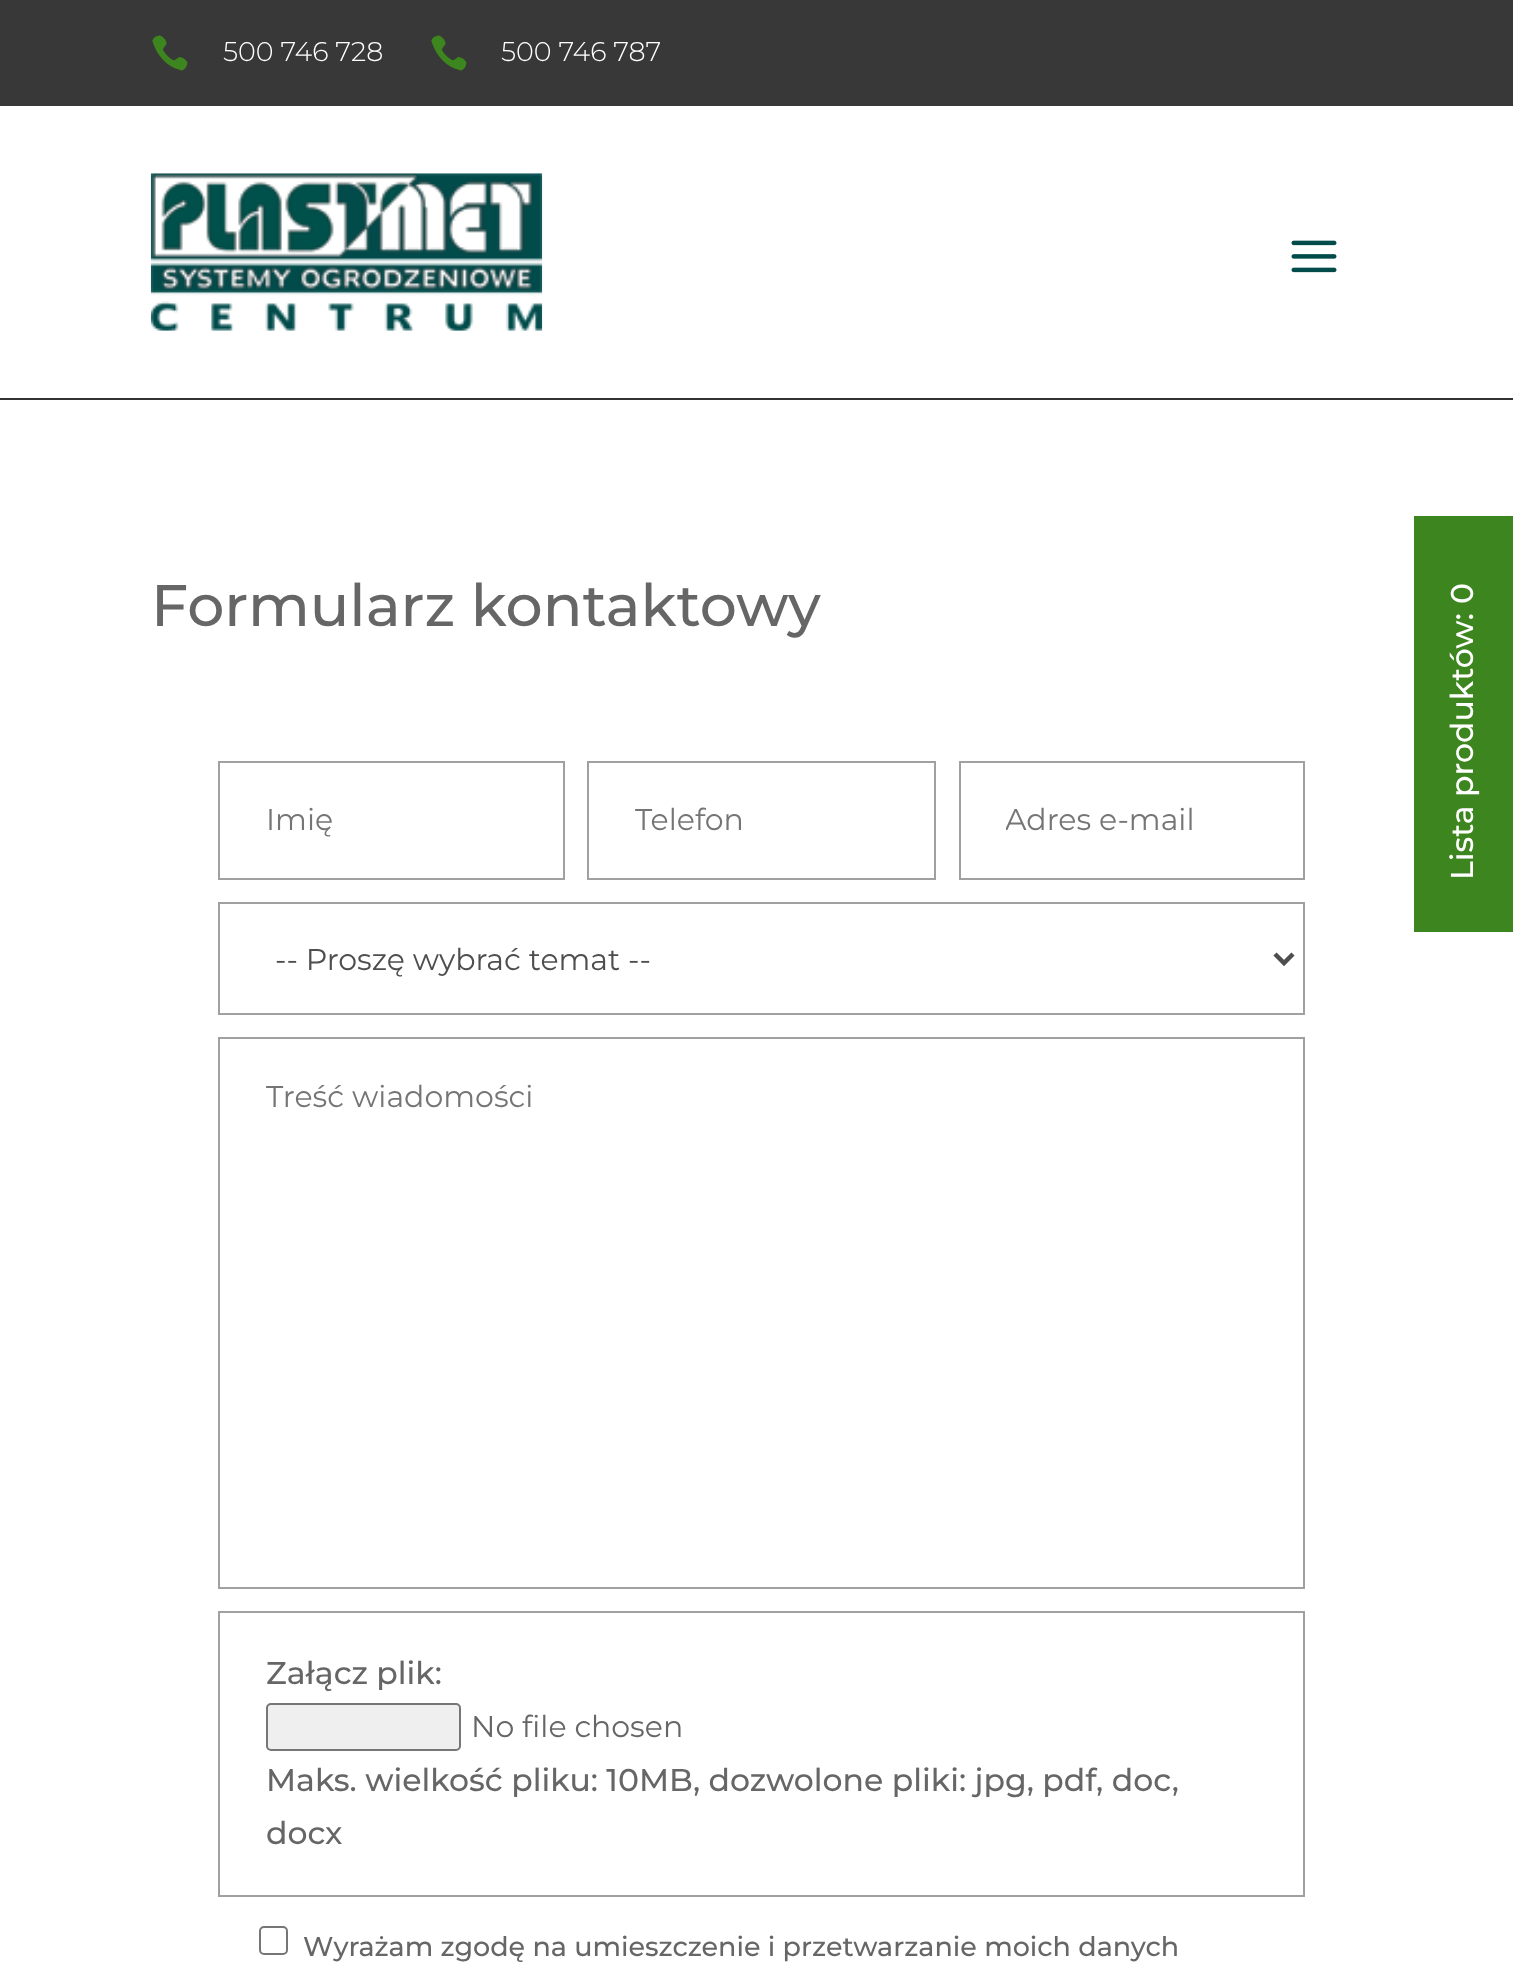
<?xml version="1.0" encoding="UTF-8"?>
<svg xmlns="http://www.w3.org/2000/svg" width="1513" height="1986">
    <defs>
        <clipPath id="clip1"><rect x="1006" y="801" width="252" height="36"/></clipPath>
    </defs>
    <rect width="100%" height="100%" fill="#FFFFFF"/>
    <rect x="0" y="0" width="1513" height="106" fill="#383838"/>
    <image x="152" y="35" width="36" height="36" href="img_01.png"/>
    <text x="223" y="61" font-family="'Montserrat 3'" font-size="27" font-weight="100" fill="#FFFFFF">500 746 728</text>
    <image x="431" y="35" width="36" height="36" href="img_01.png"/>
    <text x="501" y="61" font-family="'Montserrat 3'" font-size="27" font-weight="100" fill="#FFFFFF">500 746 787</text>
    <rect x="0" y="398" width="1513" height="2" fill="#333333"/>
    <image x="150" y="173" width="393" height="158" href="img_02.png"/>
    <image x="1291" y="240" width="46" height="33" href="img_03.png"/>
    <text x="151" y="626" font-family="Montserrat" font-size="58.5" font-weight="100" fill="#666666">Formularz kontaktowy</text>
    <rect x="219" y="762" width="345" height="117" fill="none" stroke="#A0A0A0" stroke-width="2"/>
    <text x="266" y="830" font-family="'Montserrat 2'" font-size="30" font-weight="100" fill="#757575">Imię</text>
    <rect x="588" y="762" width="347" height="117" fill="none" stroke="#A0A0A0" stroke-width="2"/>
    <text x="635" y="830" font-family="'Montserrat 2'" font-size="30" font-weight="100" fill="#757575">Telefon</text>
    <rect x="960" y="762" width="344" height="117" fill="none" stroke="#A0A0A0" stroke-width="2"/>
    <g clip-path="url(#clip1)">
        <text x="1005" y="830" font-family="'Montserrat 2'" font-size="30" font-weight="100" fill="#757575">Adres e-mail</text>
    </g>
    <rect x="219" y="903" width="1085" height="111" fill="none" stroke="#A0A0A0" stroke-width="2"/>
    <path d="M 1275 954 L 1284 963 L 1293 954" fill="none" stroke="#4E4E4E" stroke-width="4.5"/>
    <text x="275" y="970" font-family="'Montserrat 2'" font-size="30" font-weight="100" fill="#4E4E4E">-- Proszę wybrać temat --</text>
    <rect x="219" y="1038" width="1085" height="550" fill="none" stroke="#A0A0A0" stroke-width="2"/>
    <text x="266" y="1107" font-family="'Montserrat 2'" font-size="30" font-weight="100" fill="#757575">Treść wiadomości</text>
    <rect x="219" y="1612" width="1085" height="284" fill="none" stroke="#A0A0A0" stroke-width="2"/>
    <text x="266" y="1684" font-family="Montserrat" font-size="31.5" font-weight="100" fill="#666666">Załącz plik:</text>
    <rect x="267" y="1704" width="193" height="46" rx="4" fill="#EFEFEF" stroke="#767676" stroke-width="2"/>
    <text x="471" y="1737" font-family="'Montserrat 2'" font-size="30" font-weight="100" fill="#666666">No file chosen</text>
    <text font-family="Montserrat" font-size="31.5" font-weight="100" fill="#666666">
        <tspan x="266" y="1791">Maks. wielkość pliku: 10MB, dozwolone pliki: jpg, pdf, doc,</tspan>
        <tspan x="266" y="1844">docx</tspan>
    </text>
    <rect x="260" y="1927" width="27" height="27" rx="4" fill="none" stroke="#767676" stroke-width="2"/>
    <text x="303" y="1956" font-family="Montserrat" font-size="27" font-weight="100" fill="#666666">Wyrażam zgodę na umieszczenie i przetwarzanie moich danych</text>
    <rect x="1414" y="516" width="99" height="416" fill="#3D851E"/>
    <text x="1473" y="604" transform="rotate(-90 1473 604)" font-family="Montserrat" font-size="31.5" font-weight="100" fill="#FFFFFF">0</text>
    <text x="1473" y="880" transform="rotate(-90 1473 880)" font-family="Montserrat" font-size="31.5" font-weight="100" fill="#FFFFFF">Lista produktów:</text>
</svg>
